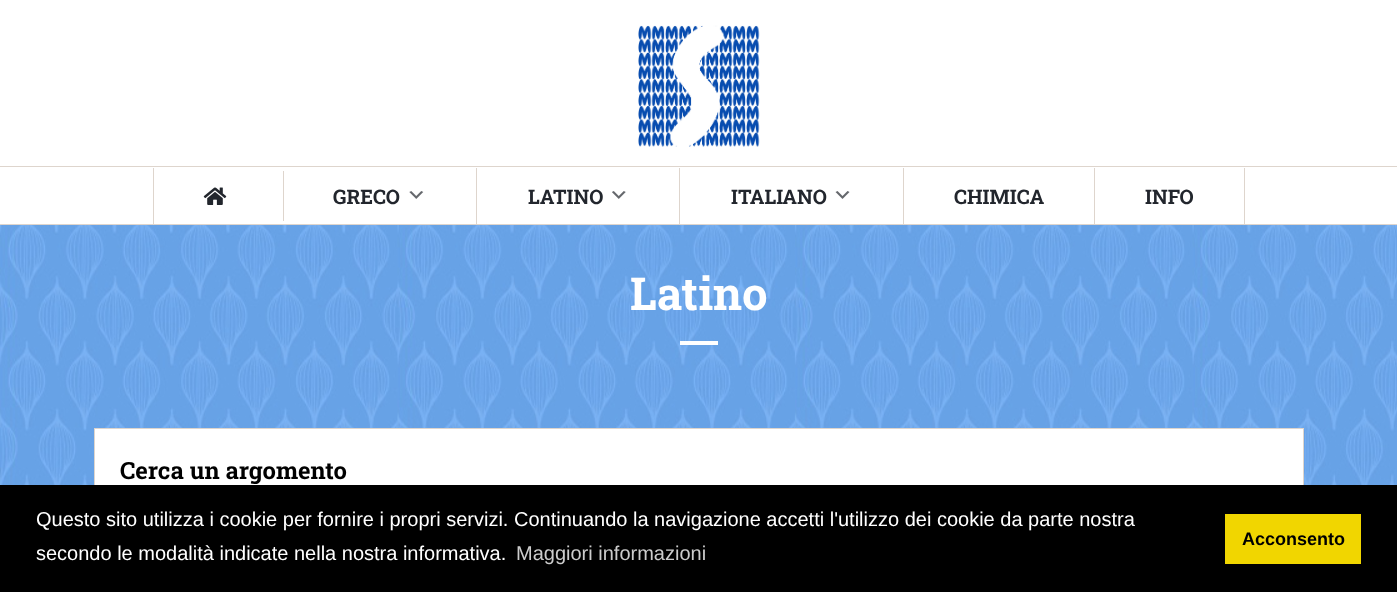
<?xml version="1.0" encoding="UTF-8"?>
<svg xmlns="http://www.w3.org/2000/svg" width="1397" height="592">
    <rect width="100%" height="100%" fill="#FFFFFF"/>
    <image x="638" y="25" width="122" height="122" href="img_01.png"/>
    <rect x="0" y="166" width="1397" height="1" fill="#DED5CD"/>
    <rect x="0" y="224" width="1397" height="1" fill="#DED5CD"/>
    <rect x="1244" y="168" width="1" height="56" fill="#DED5CD"/>
    <rect x="153" y="168" width="1" height="56" fill="#DED5CD"/>
    <rect x="283" y="171" width="1" height="50" fill="#DED5CD"/>
    <image x="203" y="187" width="24" height="18" href="img_02.png"/>
    <rect x="476" y="168" width="1" height="56" fill="#DED5CD"/>
    <text x="333" y="204" font-family="Roboto Slab" font-size="20" font-weight="700" fill="#22262D">GRECO</text>
    <image x="409" y="191" width="15" height="8" href="img_03.png"/>
    <rect x="679" y="168" width="1" height="56" fill="#DED5CD"/>
    <text x="528" y="204" font-family="Roboto Slab" font-size="20" font-weight="700" fill="#22262D">LATINO</text>
    <image x="612" y="191" width="14" height="8" href="img_04.png"/>
    <rect x="903" y="168" width="1" height="56" fill="#DED5CD"/>
    <text x="731" y="204" font-family="Roboto Slab" font-size="20" font-weight="700" fill="#22262D">ITALIANO</text>
    <image x="835" y="191" width="15" height="8" href="img_05.png"/>
    <rect x="1094" y="168" width="1" height="56" fill="#DED5CD"/>
    <text x="954" y="204" font-family="Roboto Slab" font-size="20" font-weight="700" fill="#22262D">CHIMICA</text>
    <text x="1145" y="204" font-family="Roboto Slab" font-size="20" font-weight="700" fill="#22262D">INFO</text>
    <image x="0" y="225" width="1397" height="260" href="img_06.png"/>
    <text x="630" y="310" font-family="Roboto Slab" font-size="45.5" font-weight="700" fill="#FFFFFF">Latino</text>
    <rect x="680" y="341" width="38" height="4" fill="#FFFFFF"/>
    <rect x="95" y="429" width="1208" height="56" fill="#FFFFFF"/>
    <rect x="94.5" y="428.5" width="1209" height="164" fill="none" stroke="#DED5CD"/>
    <text x="120" y="479" font-family="Roboto Slab" font-size="23.75" font-weight="700" fill="#000000">Cerca un argomento</text>
    <rect x="0" y="485" width="1397" height="107" fill="#000000"/>
    <text font-family="Liberation Sans" font-size="20" fill="#FFFFFF">
        <tspan x="36" y="526">Questo sito utilizza i cookie per fornire i propri servizi. Continuando la navigazione accetti l'utilizzo dei cookie da parte nostra</tspan>
        <tspan x="36" y="560">secondo le modalità indicate nella nostra informativa.</tspan>
    </text>
    <text x="516" y="560" font-family="Liberation Sans" font-size="20" fill="#CCCCCC">Maggiori informazioni</text>
    <rect x="1225" y="514" width="136" height="50" fill="#F1D600"/>
    <text x="1242" y="545" font-family="Liberation Sans" font-size="18" font-weight="700" fill="#000000">Acconsento</text>
</svg>
